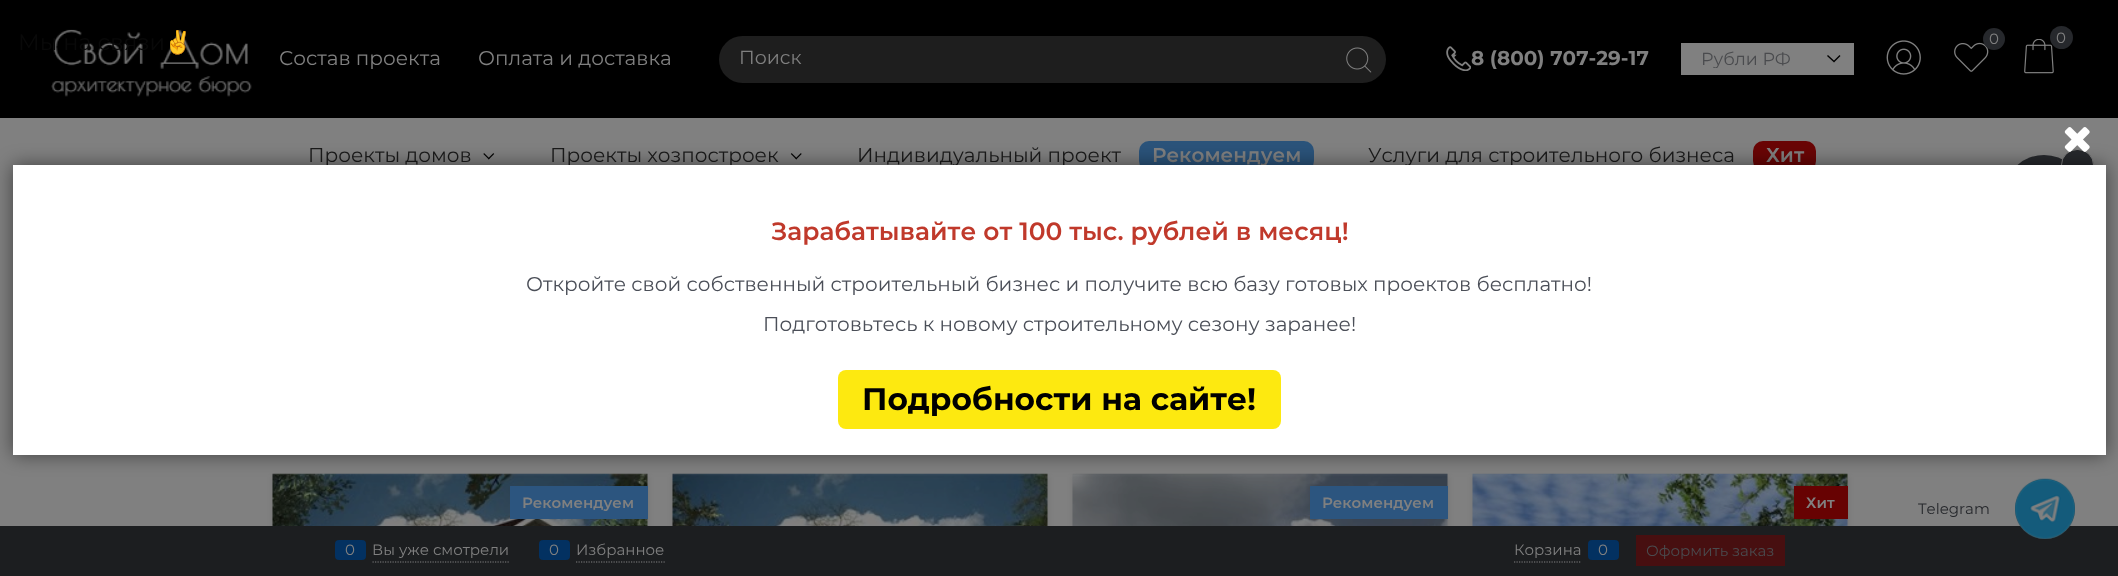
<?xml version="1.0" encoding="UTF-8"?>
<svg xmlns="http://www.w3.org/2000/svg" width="2118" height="576">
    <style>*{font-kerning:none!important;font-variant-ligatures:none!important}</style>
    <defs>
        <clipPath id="clip1"><rect x="1701" y="50" width="114" height="18"/></clipPath>
        <filter id="blur1" x="-50%" y="-200%" width="200%" height="500%"><feGaussianBlur stdDeviation="3"/></filter>
        <filter id="blur2" x="-50%" y="-200%" width="200%" height="500%"><feGaussianBlur stdDeviation="9.5"/></filter>
    </defs>
    <rect width="100%" height="100%" fill="#808080"/>
    <rect x="0" y="0" width="2118" height="118" fill="#000000"/>
    <image x="51" y="29" width="201" height="68" href="img_01.png"/>
    <text x="18" y="50" font-family="Montserrat" font-size="22.5" fill="#090909">Мы на связи</text>
    <text x="164" y="50" font-family="Noto Color Emoji" font-size="22.5" fill="#121212">✌️</text>
    <text x="279" y="65" font-family="Montserrat" font-size="20" fill="#808080">Состав проекта</text>
    <text x="478" y="65" font-family="Montserrat" font-size="20" fill="#808080">Оплата и доставка</text>
    <rect x="719" y="36" width="667" height="47" rx="23.5" fill="#1E1E1E"/>
    <text x="739" y="64" font-family="Montserrat" font-size="19" fill="#808080">Поиск</text>
    <image x="1346" y="47" width="26" height="26" href="img_02.png"/>
    <image x="1446" y="46" width="25" height="25" href="img_03.png"/>
    <text x="1471" y="65" font-family="Montserrat" font-size="20" font-weight="700" fill="#808080">8 (800) 707-29-17</text>
    <rect x="1681" y="43" width="173" height="32" fill="#808080"/>
    <g clip-path="url(#clip1)">
        <text x="1701" y="65" font-family="Montserrat" font-size="17.5" fill="#4A4B4E">Рубли РФ</text>
    </g>
    <path d="M 1839.5 56 L 1834 61.5 M 1834 61.5 L 1828 56" fill="none" stroke="#000000" stroke-width="1.4" stroke-linecap="square"/>
    <image x="1886" y="40" width="35" height="35" href="img_04.png"/>
    <image x="1954" y="42" width="35" height="30" href="img_05.png"/>
    <circle cx="1994" cy="39" r="11" fill="#26282C"/>
    <text x="1989" y="44" font-family="Montserrat" font-size="15" fill="#808080">0</text>
    <image x="2024" y="39" width="30" height="35" href="img_06.png"/>
    <circle cx="2061.5" cy="37.5" r="11.5" fill="#26282C"/>
    <text x="2056" y="43" font-family="Montserrat" font-size="15" fill="#808080">0</text>
    <text x="308" y="162" font-family="Montserrat" font-size="20" fill="#1A1A1A">Проекты домов</text>
    <image x="483" y="153" width="12" height="7" href="img_07.png"/>
    <text x="550" y="162" font-family="Montserrat" font-size="20" fill="#1A1A1A">Проекты хозпостроек</text>
    <image x="790" y="153" width="12" height="7" href="img_08.png"/>
    <text x="857" y="162" font-family="Montserrat" font-size="20" fill="#1A1A1A">Индивидуальный проект</text>
    <rect x="1139" y="141" width="175" height="30" rx="10" fill="#2A537A"/>
    <text x="1152" y="162" font-family="Montserrat" font-size="20" font-weight="600" fill="#808080">Рекомендуем</text>
    <text x="1368" y="162" font-family="Montserrat" font-size="20" fill="#1A1A1A">Услуги для строительного бизнеса</text>
    <rect x="1753" y="141" width="63" height="30" rx="10" fill="#690404"/>
    <text x="1766" y="162" font-family="Montserrat" font-size="20" font-weight="600" fill="#808080">Хит</text>
    <rect x="273" y="476" width="375" height="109" fill="#000000" fill-opacity="0.1" filter="url(#blur1)"/>
    <image x="272" y="473" width="376" height="53" href="img_09.png"/>
    <rect x="510" y="486" width="138" height="33" fill="#2C557F"/>
    <text x="522" y="508" font-family="Montserrat" font-size="15" font-weight="600" fill="#808080">Рекомендуем</text>
    <rect x="673" y="476" width="375" height="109" fill="#000000" fill-opacity="0.1" filter="url(#blur1)"/>
    <image x="672" y="473" width="376" height="53" href="img_10.png"/>
    <rect x="1073" y="476" width="375" height="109" fill="#000000" fill-opacity="0.1" filter="url(#blur1)"/>
    <image x="1072" y="473" width="376" height="53" href="img_11.png"/>
    <rect x="1310" y="486" width="138" height="33" fill="#2C557F"/>
    <text x="1322" y="508" font-family="Montserrat" font-size="15" font-weight="600" fill="#808080">Рекомендуем</text>
    <rect x="1473" y="476" width="375" height="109" fill="#000000" fill-opacity="0.1" filter="url(#blur1)"/>
    <image x="1472" y="473" width="376" height="53" href="img_12.png"/>
    <rect x="1794" y="486" width="54" height="33" fill="#670202"/>
    <text x="1806" y="508" font-family="Montserrat" font-size="15" font-weight="600" fill="#808080">Хит</text>
    <ellipse cx="2044" cy="189" rx="37.5" ry="34" fill="#26282C"/>
    <rect x="2061.5" y="149.5" width="32" height="31" rx="15.5" fill="#26282C" stroke="#808080"/>
    <rect x="0" y="526" width="2118" height="50" fill="#1C1E20"/>
    <path d="M 372.5 562 H 509" fill="none" stroke="#808080" stroke-width="1.2" stroke-dasharray="1.25 1.25"/>
    <rect x="335" y="540" width="31" height="20" rx="4" fill="#033161"/>
    <text x="345" y="555" font-family="Montserrat" font-size="15" fill="#808080">0</text>
    <text x="372" y="555" font-family="Montserrat" font-size="15" fill="#808080">Вы уже смотрели</text>
    <path d="M 576 562 H 665" fill="none" stroke="#808080" stroke-width="1.2" stroke-dasharray="1.25 1.25"/>
    <rect x="539" y="540" width="31" height="20" rx="4" fill="#033161"/>
    <text x="549" y="555" font-family="Montserrat" font-size="15" fill="#808080">0</text>
    <text x="576" y="555" font-family="Montserrat" font-size="15" fill="#808080">Избранное</text>
    <path d="M 1514 562 H 1581" fill="none" stroke="#808080" stroke-width="1.2" stroke-dasharray="1.25 1.25"/>
    <text x="1514" y="555" font-family="Montserrat" font-size="15" fill="#808080">Корзина</text>
    <rect x="1588" y="540" width="31" height="20" rx="4" fill="#033161"/>
    <text x="1598" y="555" font-family="Montserrat" font-size="15" fill="#808080">0</text>
    <rect x="1636" y="535" width="149" height="31" fill="#470F10"/>
    <text x="1646" y="556" font-family="Montserrat" font-size="15" fill="#4A4B4E">Оформить заказ</text>
    <circle cx="2045" cy="509" r="30" fill="#565656"/>
    <image x="2015" y="478" width="60" height="61" href="img_14.png"/>
    <rect x="13" y="165" width="2093" height="290" fill="#000000" fill-opacity="0.5" filter="url(#blur2)"/>
    <rect x="13" y="165" width="2093" height="290" fill="#FFFFFF"/>
    <image x="2064" y="127" width="26" height="25" href="img_13.png"/>
    <text x="771" y="240" font-family="Montserrat" font-size="25" font-weight="600" fill="#C0392B">Зарабатывайте от 100 тыс. рублей в месяц!</text>
    <text x="526" y="291" font-family="Montserrat" font-size="20" fill="#4B4F58">Откройте свой собственный строительный бизнес и получите всю базу готовых</text>
    <text x="1373" y="291" font-family="Montserrat" font-size="20" fill="#4B4F58">проектов бесплатно!</text>
    <text x="763" y="331" font-family="Montserrat" font-size="20" fill="#4B4F58">Подготовьтесь к новому строительному сезону</text>
    <text x="1265" y="331" font-family="Montserrat" font-size="20" fill="#4B4F58">заранее!</text>
    <rect x="838" y="370" width="443" height="59" rx="8" fill="#FDE910"/>
    <text x="862" y="410" font-family="Montserrat" font-size="31.25" font-weight="700" fill="#000000">Подробности на сайте!</text>
    <text x="1918" y="514" font-family="Montserrat" font-size="15" fill="#26282C">Telegram</text>
</svg>
